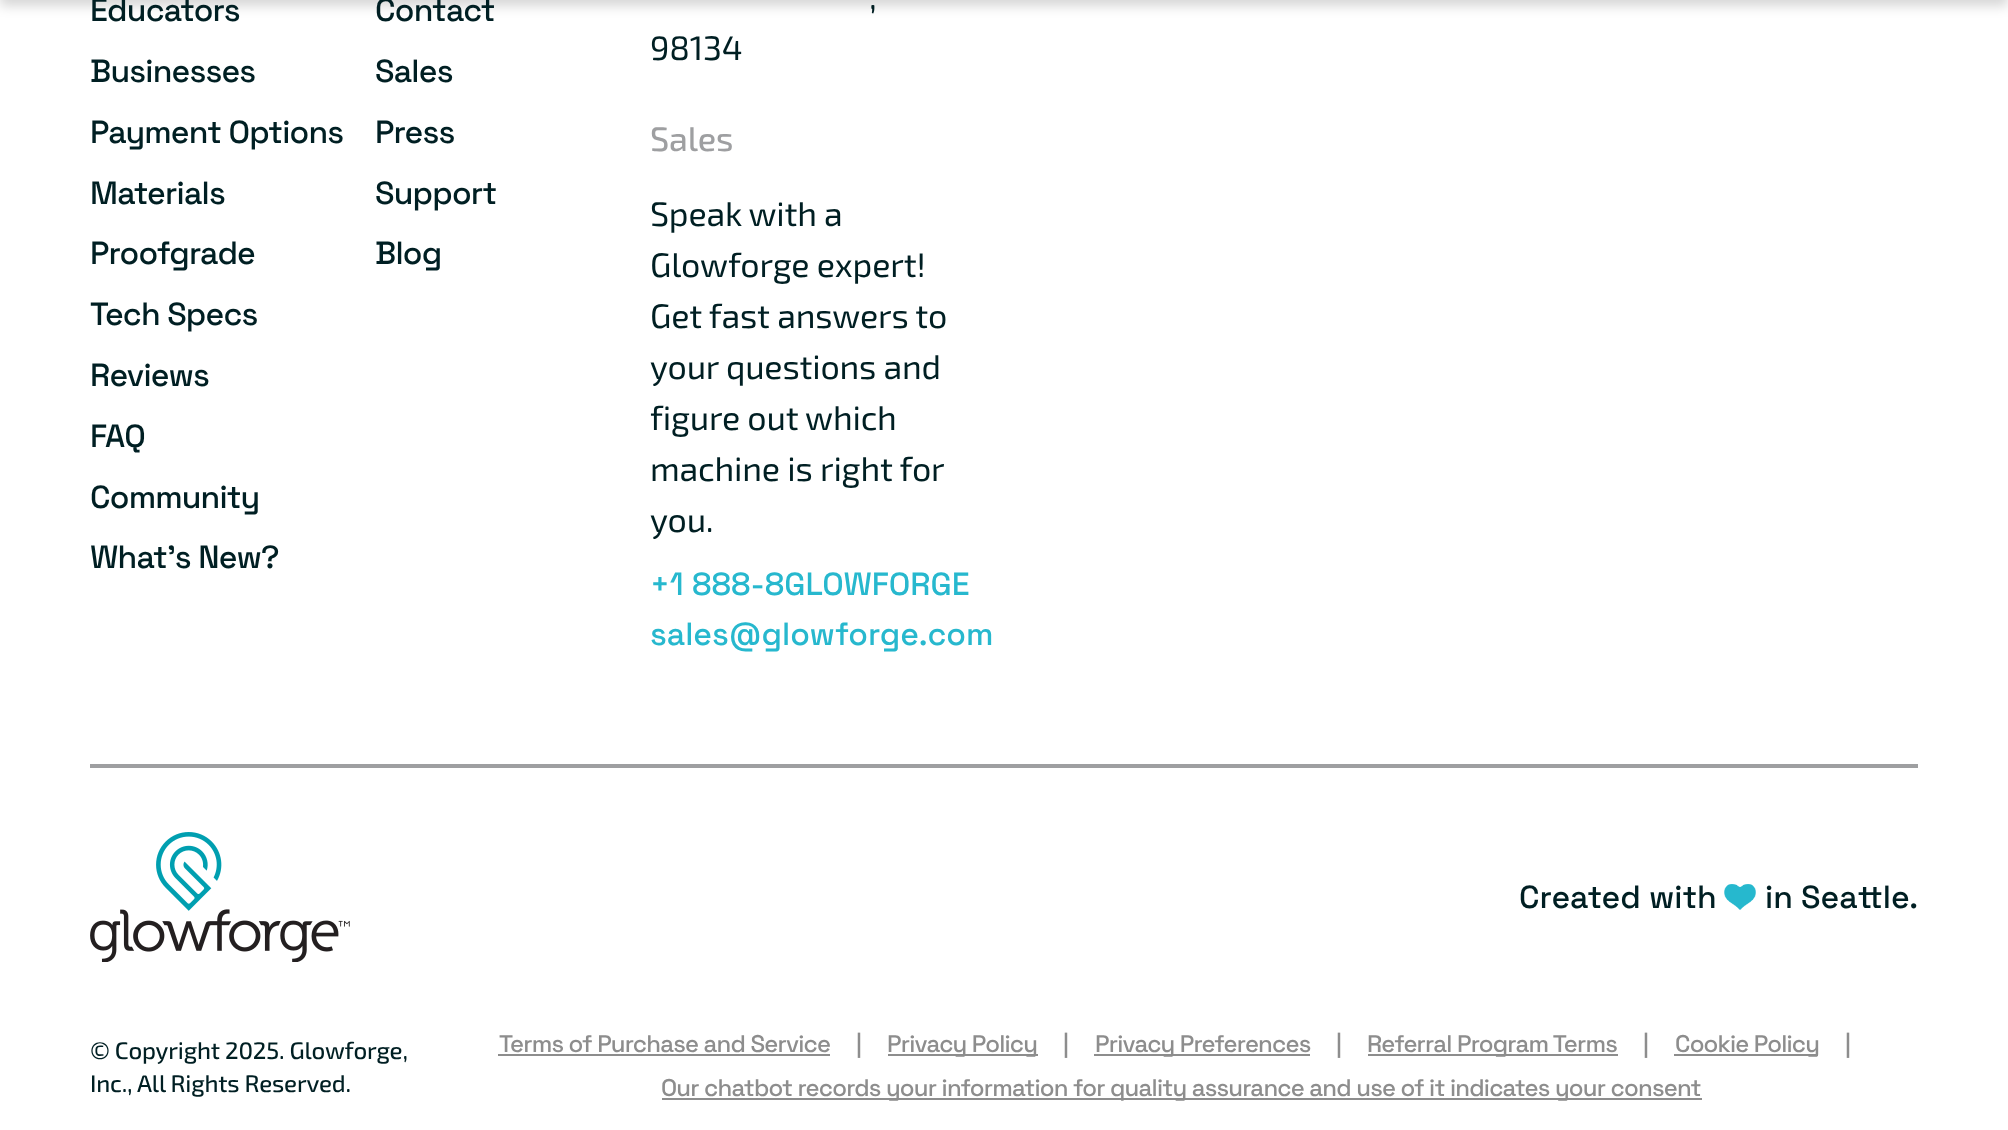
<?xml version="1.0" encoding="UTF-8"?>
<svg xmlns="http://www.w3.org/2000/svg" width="2008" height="1130">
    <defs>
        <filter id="blur1" x="-50%" y="-200%" width="200%" height="500%"><feGaussianBlur stdDeviation="6"/></filter>
    </defs>
    <rect width="100%" height="100%" fill="#FFFFFF"/>
    <rect x="0" y="-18" width="2008" height="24" fill="#000000" fill-opacity="0.16" filter="url(#blur1)"/>
    <text font-family="Space Grotesk" font-size="32" font-weight="500" letter-spacing="-0.8" fill="#001F23">
        <tspan x="90" y="21">Educators</tspan>
        <tspan x="90" y="82">Businesses</tspan>
        <tspan x="90" y="143">Payment Options</tspan>
        <tspan x="90" y="204">Materials</tspan>
        <tspan x="90" y="264">Proofgrade</tspan>
        <tspan x="90" y="325">Tech Specs</tspan>
        <tspan x="90" y="386">Reviews</tspan>
        <tspan x="90" y="447">FAQ</tspan>
        <tspan x="90" y="508">Community</tspan>
        <tspan x="90" y="568">What's New?</tspan>
    </text>
    <text font-family="Space Grotesk" font-size="32" font-weight="500" letter-spacing="-0.8" fill="#001F23">
        <tspan x="375" y="21">Contact</tspan>
        <tspan x="375" y="82">Sales</tspan>
        <tspan x="375" y="143">Press</tspan>
        <tspan x="375" y="204">Support</tspan>
        <tspan x="375" y="264">Blog</tspan>
    </text>
    <text x="869" y="9" font-family="'Exo 2'" font-size="34" letter-spacing="-0.2" fill="#001F23">,</text>
    <text x="650" y="60" font-family="'Exo 2'" font-size="34" letter-spacing="-0.2" fill="#001F23">98134</text>
    <text x="650" y="151" font-family="'Exo 2'" font-size="34" font-weight="500" letter-spacing="-0.2" fill="#9E9FA1">Sales</text>
    <text font-family="'Exo 2'" font-size="34" letter-spacing="-0.2" fill="#001F23">
        <tspan x="650" y="226">Speak with a</tspan>
        <tspan x="650" y="277">Glowforge expert!</tspan>
        <tspan x="650" y="328">Get fast answers to</tspan>
        <tspan x="650" y="379">your questions and</tspan>
        <tspan x="650" y="430">figure out which</tspan>
        <tspan x="650" y="481">machine is right for</tspan>
        <tspan x="650" y="532">you.</tspan>
    </text>
    <text font-family="Space Grotesk" font-size="32" font-weight="500" fill="#27B8CE">
        <tspan x="650" y="595">+1 888-8GLOWFORGE</tspan>
        <tspan x="650" y="645">sales@glowforge.com</tspan>
    </text>
    <rect x="90" y="764" width="1828" height="4" fill="#9E9FA1"/>
    <image x="90" y="832" width="260" height="130" href="img_01.png"/>
    <text x="1519" y="908" font-family="Space Grotesk" font-size="32" font-weight="500" fill="#001F23">Created with</text>
    <image x="1724" y="884" width="32" height="26" href="img_02.png"/>
    <text x="1765" y="908" font-family="Space Grotesk" font-size="32" font-weight="500" fill="#001F23">in Seattle.</text>
    <text font-family="'Exo 2'" font-size="24" font-weight="500" letter-spacing="-0.2" fill="#001F23">
        <tspan x="90" y="1059">© Copyright 2025. Glowforge,</tspan>
        <tspan x="90" y="1092">Inc., All Rights Reserved.</tspan>
    </text>
    <text x="499" y="1052" font-family="Space Grotesk" font-size="24" font-weight="500" letter-spacing="-0.8" fill="#8D8D8D">Terms of Purchase and Service</text>
    <rect x="498" y="1054" width="332" height="2" fill="#8D8D8D"/>
    <text x="856" y="1052" font-family="Space Grotesk" font-size="24" font-weight="500" letter-spacing="-0.8" fill="#8D8D8D">|</text>
    <rect x="888" y="1054" width="150" height="2" fill="#8D8D8D"/>
    <text x="887" y="1052" font-family="Space Grotesk" font-size="24" font-weight="500" letter-spacing="-0.8" fill="#8D8D8D">Privacy Policy</text>
    <text x="1063" y="1052" font-family="Space Grotesk" font-size="24" font-weight="500" letter-spacing="-0.8" fill="#8D8D8D">|</text>
    <rect x="1094" y="1054" width="216" height="2" fill="#8D8D8D"/>
    <text x="1095" y="1052" font-family="Space Grotesk" font-size="24" font-weight="500" letter-spacing="-0.8" fill="#8D8D8D">Privacy Preferences</text>
    <text x="1336" y="1052" font-family="Space Grotesk" font-size="24" font-weight="500" letter-spacing="-0.8" fill="#8D8D8D">|</text>
    <rect x="1368" y="1054" width="250" height="2" fill="#8D8D8D"/>
    <text x="1367" y="1052" font-family="Space Grotesk" font-size="24" font-weight="500" letter-spacing="-0.8" fill="#8D8D8D">Referral Program Terms</text>
    <text x="1643" y="1052" font-family="Space Grotesk" font-size="24" font-weight="500" letter-spacing="-0.8" fill="#8D8D8D">|</text>
    <rect x="1674" y="1054" width="144" height="2" fill="#8D8D8D"/>
    <text x="1675" y="1052" font-family="Space Grotesk" font-size="24" font-weight="500" letter-spacing="-0.8" fill="#8D8D8D">Cookie Policy</text>
    <text x="1845" y="1052" font-family="Space Grotesk" font-size="24" font-weight="500" letter-spacing="-0.8" fill="#8D8D8D">|</text>
    <rect x="662" y="1098" width="1040" height="2" fill="#8D8D8D"/>
    <text x="661" y="1096" font-family="Space Grotesk" font-size="24" font-weight="500" letter-spacing="-0.8" fill="#8D8D8D">Our chatbot records your information for quality assurance and use of it indicates your consent</text>
</svg>
